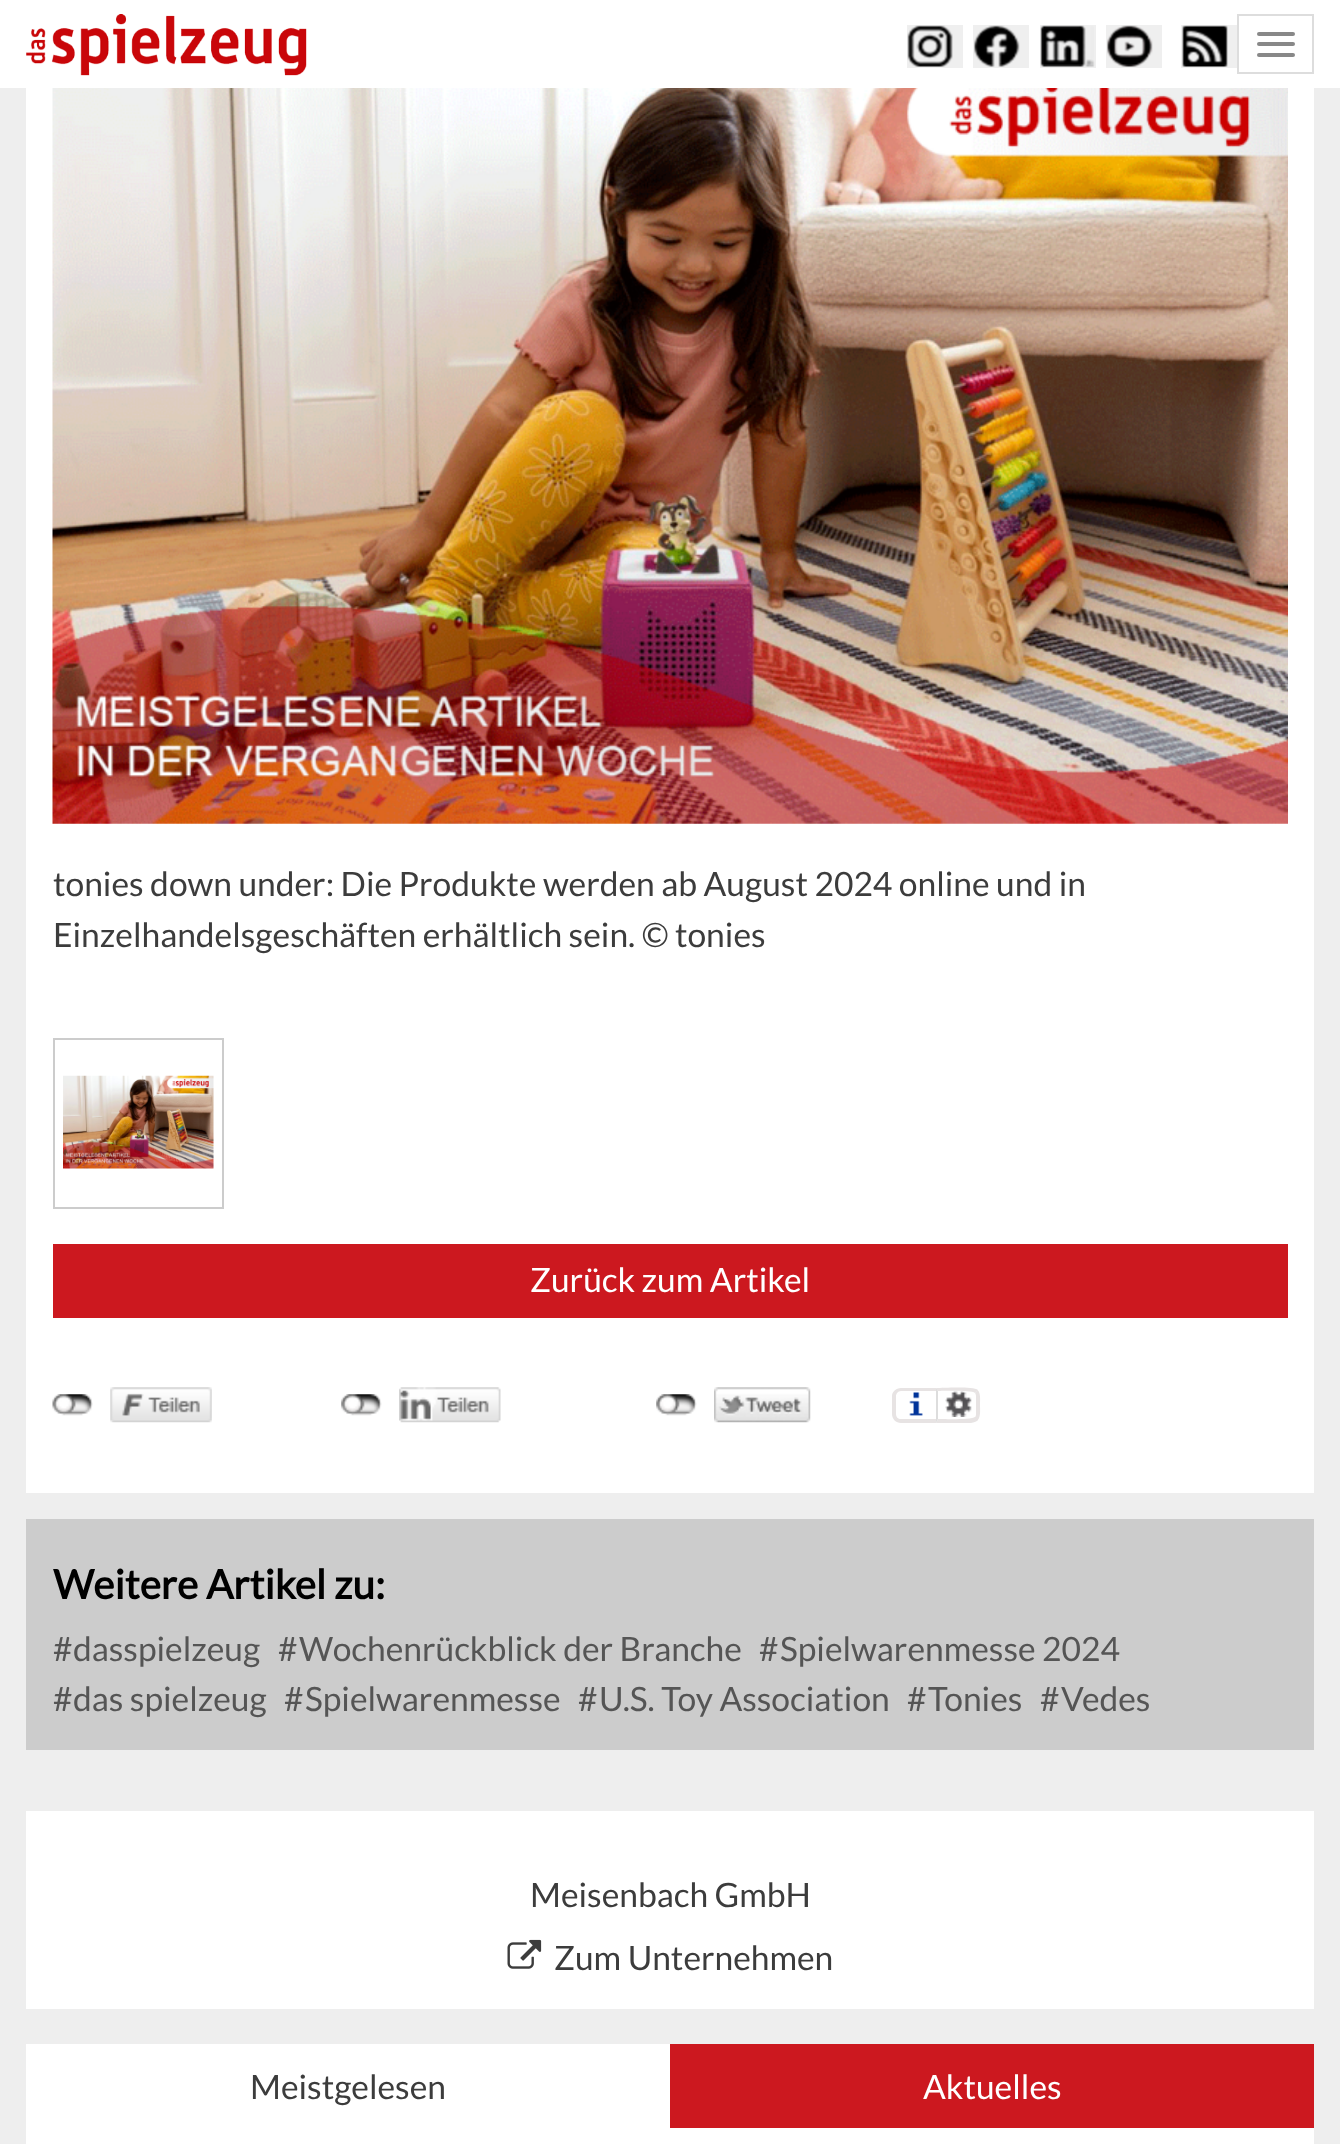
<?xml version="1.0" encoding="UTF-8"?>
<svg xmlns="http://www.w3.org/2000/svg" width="1340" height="2144">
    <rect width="100%" height="100%" fill="#EEEEEE"/>
    <rect x="0" y="0" width="1340" height="88" fill="#FFFFFF"/>
    <image x="26" y="14" width="281" height="62" href="img_01.png"/>
    <rect x="907" y="25" width="56" height="43" fill="#EFEFEF"/>
    <image x="907" y="25" width="46" height="42" href="img_02.png"/>
    <rect x="973" y="25" width="56" height="43" fill="#EFEFEF"/>
    <image x="974" y="25" width="46" height="42" href="img_03.png"/>
    <rect x="1040" y="25" width="56" height="43" fill="#EFEFEF"/>
    <image x="1040" y="25" width="55" height="42" href="img_04.png"/>
    <rect x="1106" y="25" width="56" height="43" fill="#EFEFEF"/>
    <image x="1107" y="25" width="46" height="42" href="img_05.png"/>
    <rect x="1181" y="25" width="56" height="43" fill="#EFEFEF"/>
    <image x="1182" y="25" width="46" height="42" href="img_06.png"/>
    <rect x="1238" y="15" width="75" height="58" fill="none" stroke="#DDDDDD" stroke-width="2"/>
    <rect x="1257" y="32" width="38" height="4" rx="2" fill="#888888"/>
    <rect x="1257" y="42" width="38" height="4" rx="2" fill="#888888"/>
    <rect x="1257" y="53" width="38" height="4" rx="2" fill="#888888"/>
    <rect x="26" y="88" width="1288" height="1405" fill="#FFFFFF"/>
    <image x="52" y="88" width="1236" height="736" href="img_07.png"/>
    <text font-family="Lato" font-size="33.6" fill="#3C3C3C">
        <tspan x="53" y="896">tonies down under: Die Produkte werden ab August 2024 online und in</tspan>
        <tspan x="53" y="947">Einzelhandelsgeschäften erhältlich sein. © tonies</tspan>
    </text>
    <rect x="54" y="1039" width="169" height="169" fill="none" stroke="#CCCCCC" stroke-width="2"/>
    <image x="63" y="1075" width="151" height="94" href="img_08.png"/>
    <rect x="53" y="1244" width="1235" height="74" fill="#CC181F"/>
    <text x="530" y="1292" font-family="Lato" font-size="33.6" fill="#FFFFFF">Zurück zum Artikel</text>
    <image x="52" y="1394" width="41" height="22" href="img_09.png"/>
    <image x="110" y="1387" width="102" height="36" href="img_10.png"/>
    <image x="341" y="1394" width="41" height="22" href="img_11.png"/>
    <image x="399" y="1387" width="102" height="36" href="img_12.png"/>
    <image x="656" y="1394" width="41" height="22" href="img_11.png"/>
    <image x="714" y="1387" width="97" height="36" href="img_13.png"/>
    <image x="909" y="1392" width="14" height="24" href="img_14.png"/>
    <path d="M 901 1388 H 936 V 1423 H 901 C 896 1423 892 1419 892 1414 V 1396 C 892 1392 896 1388 901 1388 Z M 901 1391 H 936 V 1419 H 901 C 898 1419 896 1417 896 1414 V 1396 C 896 1394 898 1391 901 1391 Z" fill="#E7E3E3" fill-rule="evenodd"/>
    <image x="945" y="1390" width="27" height="27" href="img_15.png"/>
    <path d="M 938 1391 C 943 1391 972 1390 975 1393 L 978 1390 C 973 1386 943 1388 936 1388 Z" fill="#E7E3E3"/>
    <path d="M 977.5 1390 C 981 1393 980 1401 980 1405 C 980 1409 981 1417 977.5 1420.5 L 974.5 1417.5 C 975.5 1417 976 1415.5 976 1414.5 V 1396 C 976 1395 975.5 1393.5 975 1393 Z" fill="#E7E3E3"/>
    <path d="M 978 1420 C 976 1422 974 1422 971 1423 H 936 L 938 1419 C 943 1419 972 1420 975 1417 Z" fill="#E7E3E3"/>
    <path d="M 936 1423 L 938 1419 V 1391 L 936 1388 Z" fill="#DDDDDD"/>
    <rect x="26" y="1519" width="1288" height="231" fill="#CCCCCC"/>
    <text x="53" y="1599" font-family="Lato" font-size="40.25" font-weight="700" fill="#000000">Weitere Artikel zu:</text>
    <text x="53" y="1661" font-family="Lato" font-size="33.6" fill="#555555">#</text>
    <text x="73" y="1661" font-family="Lato" font-size="33.6" fill="#555555">dasspielzeug</text>
    <text x="278" y="1661" font-family="Lato" font-size="33.6" fill="#555555">#</text>
    <text x="299" y="1661" font-family="Lato" font-size="33.6" fill="#555555">Wochenrückblick der Branche</text>
    <text x="759" y="1661" font-family="Lato" font-size="33.6" fill="#555555">#</text>
    <text x="780" y="1661" font-family="Lato" font-size="33.6" fill="#555555">Spielwarenmesse 2024</text>
    <text x="53" y="1711" font-family="Lato" font-size="33.6" fill="#555555">#</text>
    <text x="73" y="1711" font-family="Lato" font-size="33.6" fill="#555555">das spielzeug</text>
    <text x="284" y="1711" font-family="Lato" font-size="33.6" fill="#555555">#</text>
    <text x="305" y="1711" font-family="Lato" font-size="33.6" fill="#555555">Spielwarenmesse</text>
    <text x="578" y="1711" font-family="Lato" font-size="33.6" fill="#555555">#</text>
    <text x="599" y="1711" font-family="Lato" font-size="33.6" fill="#555555">U.S. Toy Association</text>
    <text x="907" y="1711" font-family="Lato" font-size="33.6" fill="#555555">#</text>
    <text x="928" y="1711" font-family="Lato" font-size="33.6" fill="#555555">Tonies</text>
    <text x="1040" y="1711" font-family="Lato" font-size="33.6" fill="#555555">#</text>
    <text x="1061" y="1711" font-family="Lato" font-size="33.6" fill="#555555">Vedes</text>
    <rect x="26" y="1811" width="1288" height="198" fill="#FFFFFF"/>
    <text x="530" y="1907" font-family="Lato" font-size="33.6" fill="#3C3C3C">Meisenbach GmbH</text>
    <image x="507" y="1939" width="35" height="30" href="img_16.png"/>
    <text x="554" y="1970" font-family="Lato" font-size="33.6" fill="#3C3C3C">Zum Unternehmen</text>
    <rect x="26" y="2044" width="1288" height="100" fill="#FFFFFF"/>
    <text x="250" y="2099" font-family="Lato" font-size="33.6" fill="#3C3C3C">Meistgelesen</text>
    <rect x="670" y="2044" width="644" height="84" fill="#CC181F"/>
    <text x="923" y="2099" font-family="Lato" font-size="33.6" fill="#FFFFFF">Aktuelles</text>
</svg>
